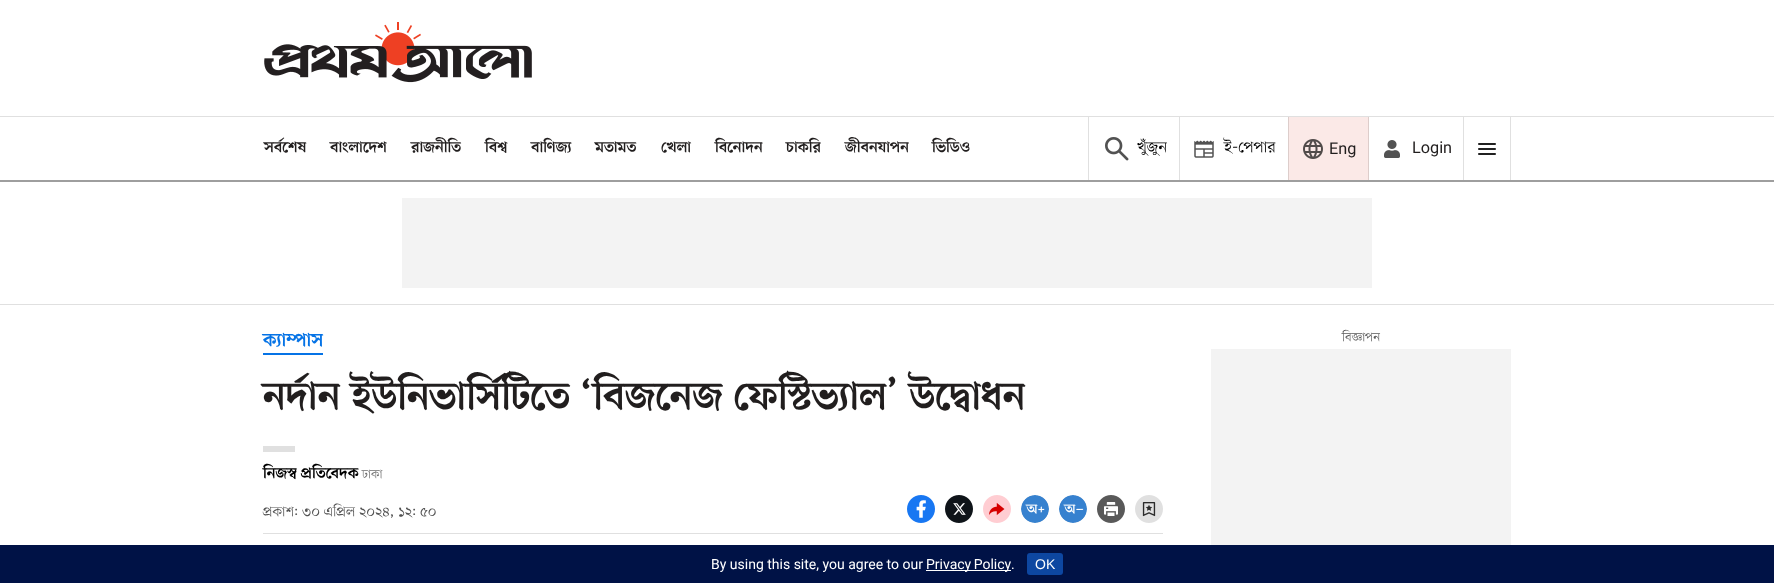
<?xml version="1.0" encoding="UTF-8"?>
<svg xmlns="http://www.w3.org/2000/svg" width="1774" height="583">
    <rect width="100%" height="100%" fill="#FFFFFF"/>
    <rect x="0" y="180" width="1774" height="2" fill="#9E9E9E"/>
    <image x="264" y="22" width="268" height="61" href="img_01.png"/>
    <rect x="0" y="116" width="1774" height="1" fill="#E0E0E0"/>
    <text x="264" y="152" font-family="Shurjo" font-size="16.25" font-weight="700" fill="#211E1E">সর্বশেষ</text>
    <text x="330" y="152" font-family="Shurjo" font-size="16.25" font-weight="700" fill="#211E1E">বাংলাদেশ</text>
    <text x="411" y="152" font-family="Shurjo" font-size="16.25" font-weight="700" fill="#211E1E">রাজনীতি</text>
    <text x="485" y="152" font-family="Shurjo" font-size="16.25" font-weight="700" fill="#211E1E">বিশ্ব</text>
    <text x="531" y="152" font-family="Shurjo" font-size="16.25" font-weight="700" fill="#211E1E">বাণিজ্য</text>
    <text x="595" y="152" font-family="Shurjo" font-size="16.25" font-weight="700" fill="#211E1E">মতামত</text>
    <text x="661" y="152" font-family="Shurjo" font-size="16.25" font-weight="700" fill="#211E1E">খেলা</text>
    <text x="715" y="152" font-family="Shurjo" font-size="16.25" font-weight="700" fill="#211E1E">বিনোদন</text>
    <text x="786" y="152" font-family="Shurjo" font-size="16.25" font-weight="700" fill="#211E1E">চাকরি</text>
    <text x="845" y="152" font-family="Shurjo" font-size="16.25" font-weight="700" fill="#211E1E">জীবনযাপন</text>
    <text x="932" y="152" font-family="Shurjo" font-size="16.25" font-weight="700" fill="#211E1E">ভিডিও</text>
    <rect x="1088" y="117" width="1" height="63" fill="#E0E0E0"/>
    <image x="1105" y="137" width="24" height="24" href="img_02.png"/>
    <text x="1137" y="152" font-family="Shurjo" font-size="16.25" fill="#000000">খুঁজুন</text>
    <rect x="1179" y="117" width="1" height="63" fill="#E0E0E0"/>
    <image x="1194" y="140" width="20" height="18" href="img_03.png"/>
    <text x="1224" y="152" font-family="Shurjo" font-size="16.25" fill="#000000">ই-পেপার</text>
    <rect x="1289" y="117" width="79" height="63" fill="#FBE9E7"/>
    <rect x="1368" y="117" width="1" height="63" fill="#DDCDCB"/>
    <rect x="1288" y="117" width="1" height="63" fill="#DDCDCB"/>
    <image x="1303" y="139" width="20" height="20" href="img_04.png"/>
    <text x="1329" y="154" font-family="Roboto" font-size="16.25" fill="#211E1E">Eng</text>
    <image x="1384" y="140" width="16" height="18" href="img_05.png"/>
    <text x="1412" y="153" font-family="Roboto" font-size="16.25" fill="#211E1E">Login</text>
    <rect x="1510" y="117" width="1" height="63" fill="#E0E0E0"/>
    <rect x="1463" y="117" width="1" height="63" fill="#E0E0E0"/>
    <image x="1478" y="143" width="18" height="12" href="img_06.png"/>
    <rect x="0" y="304" width="1774" height="1" fill="#E0E0E0"/>
    <rect x="402" y="198" width="970" height="90" fill="#F3F3F3"/>
    <text x="263" y="346" font-family="Shurjo" font-size="20" font-weight="700" fill="#0573E6">ক্যাম্পাস</text>
    <rect x="263" y="353" width="60" height="2" fill="#0573E6"/>
    <text x="263" y="409" font-family="Shurjo" font-size="42.1" font-weight="700" fill="#211E1E">নর্দান ইউনিভার্সিটিতে ‘বিজনেজ ফেস্টিভ্যাল’ উদ্বোধন</text>
    <rect x="263" y="533" width="900" height="1" fill="#E0E0E0"/>
    <rect x="263" y="446" width="32" height="6" fill="#E0E0E0"/>
    <text x="263" y="478" font-family="Shurjo" font-size="16.25" font-weight="700" fill="#000000">নিজস্ব প্রতিবেদক</text>
    <text x="362" y="478" font-family="Shurjo" font-size="13" fill="#6F6F6F">ঢাকা</text>
    <text x="263" y="516" font-family="Shurjo" font-size="14.5" fill="#525252">প্রকাশ: ৩০ এপ্রিল ২০২৪, ১২: ৫০</text>
    <image x="907" y="495" width="28" height="28" href="img_07.png"/>
    <image x="945" y="495" width="28" height="28" href="img_08.png"/>
    <image x="983" y="495" width="28" height="28" href="img_09.png"/>
    <circle cx="1035" cy="509" r="14" fill="#EEEEEE"/>
    <image x="1021" y="495" width="28" height="28" href="img_10.png"/>
    <circle cx="1073" cy="509" r="14" fill="#EEEEEE"/>
    <image x="1059" y="495" width="28" height="28" href="img_11.png"/>
    <image x="1097" y="495" width="28" height="28" href="img_12.png"/>
    <image x="1135" y="495" width="28" height="28" href="img_13.png"/>
    <rect x="1211" y="349" width="300" height="196" fill="#F3F3F3"/>
    <text x="1342" y="341" font-family="Shurjo" font-size="13" fill="#595959">বিজ্ঞাপন</text>
    <rect x="0" y="545" width="1774" height="38" fill="#001246"/>
    <text x="711" y="569" font-family="Roboto" font-size="14" fill="#FFFFFF">By using this site, you agree to our</text>
    <rect x="926" y="570" width="85" height="1" fill="#FFFFFF"/>
    <text x="926" y="569" word-spacing="-1" font-family="Roboto" font-size="14" fill="#FFFFFF">Privacy Policy</text>
    <text x="1011" y="569" font-family="Roboto" font-size="14" fill="#FFFFFF">.</text>
    <rect x="1027" y="553" width="36" height="22" rx="3" fill="#0D47A1"/>
    <text x="1035" y="569" font-family="Liberation Sans" font-size="14" fill="#FFFFFF">OK</text>
</svg>
